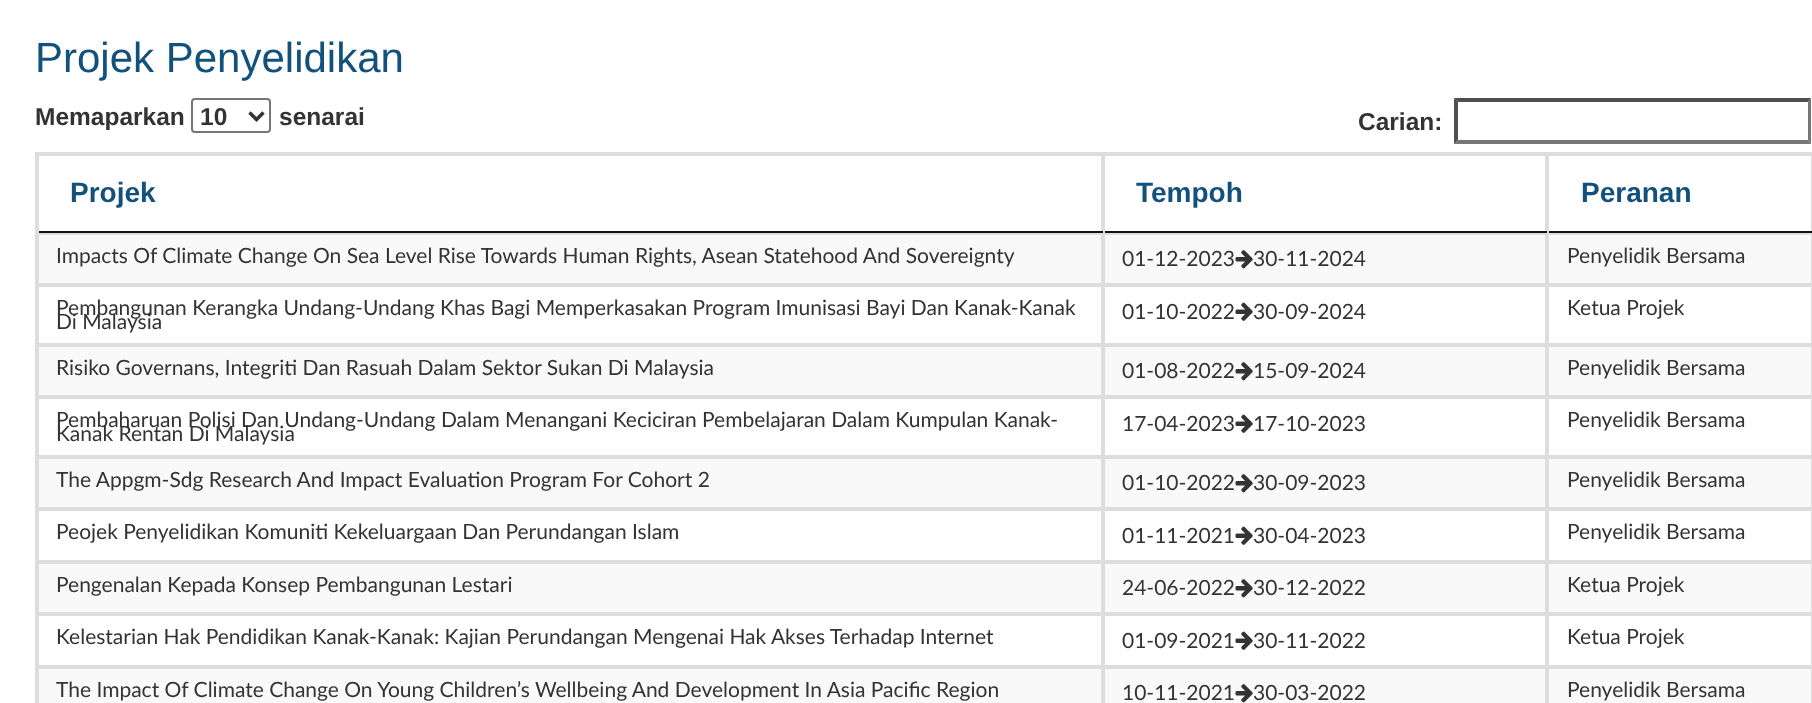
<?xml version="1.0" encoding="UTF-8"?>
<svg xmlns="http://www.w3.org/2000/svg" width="1812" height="703">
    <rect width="100%" height="100%" fill="#FFFFFF"/>
    <text x="35" y="72" font-family="Liberation Sans" font-size="42" fill="#11517C">Projek Penyelidikan</text>
    <text x="35" y="125" font-family="Liberation Sans" font-size="24.5" font-weight="700" fill="#333333">Memaparkan</text>
    <rect x="192" y="99" width="78" height="33" rx="3" fill="none" stroke="#767676" stroke-width="2"/>
    <path d="M 249.5 112.5 L 256.5 119.5 L 263.5 112.5" fill="none" stroke="#333333" stroke-width="3.5"/>
    <text x="200" y="125" font-family="Liberation Sans" font-size="24.5" font-weight="700" fill="#333333">10</text>
    <text x="279" y="125" font-family="Liberation Sans" font-size="24.5" font-weight="700" fill="#333333">senarai</text>
    <text x="1358" y="130" font-family="Liberation Sans" font-size="24.5" font-weight="700" fill="#333333">Carian:</text>
    <path d="M 1454 98 H 1811 L 1808 102 H 1458 Z" fill="#4F4F4F"/>
    <path d="M 1811 98 V 144 L 1808 140 V 102 Z" fill="#767676"/>
    <path d="M 1811 144 H 1454 L 1458 140 H 1808 Z" fill="#767676"/>
    <path d="M 1454 144 V 98 L 1458 102 V 140 Z" fill="#4F4F4F"/>
    <rect x="35" y="152" width="1777" height="2" fill="#DDDDDD"/>
    <rect x="35" y="152" width="2" height="551" fill="#DDDDDD"/>
    <rect x="37" y="154" width="1775" height="2" fill="#DDDDDD"/>
    <rect x="1101" y="154" width="2" height="79" fill="#DDDDDD"/>
    <rect x="37" y="231" width="1066" height="2" fill="#111111"/>
    <rect x="37" y="154" width="2" height="79" fill="#DDDDDD"/>
    <text x="70" y="202" font-family="Liberation Sans" font-size="28" font-weight="700" fill="#11517C">Projek</text>
    <rect x="1545" y="154" width="2" height="79" fill="#DDDDDD"/>
    <rect x="1103" y="231" width="444" height="2" fill="#111111"/>
    <rect x="1103" y="154" width="2" height="79" fill="#DDDDDD"/>
    <text x="1136" y="202" font-family="Liberation Sans" font-size="28" font-weight="700" fill="#11517C">Tempoh</text>
    <rect x="1811" y="154" width="1" height="79" fill="#DDDDDD"/>
    <rect x="1547" y="231" width="265" height="2" fill="#111111"/>
    <rect x="1547" y="154" width="2" height="79" fill="#DDDDDD"/>
    <text x="1581" y="202" font-family="Liberation Sans" font-size="28" font-weight="700" fill="#11517C">Peranan</text>
    <rect x="39" y="235" width="1772" height="48" fill="#F9F9F9"/>
    <rect x="38" y="234" width="1064" height="50" fill="none" stroke="#DDDDDD" stroke-width="2"/>
    <text x="56" y="263" font-family="Lato" font-size="21" fill="#333333">Impacts Of Climate Change On Sea Level Rise Towards Human Rights, Asean Statehood And Sovereignty</text>
    <rect x="1104" y="234" width="442" height="50" fill="none" stroke="#DDDDDD" stroke-width="2"/>
    <text x="1122" y="266" font-family="Lato" font-size="21" fill="#333333">01-12-2023</text>
    <image x="1235" y="250" width="18" height="19" href="img_01.png"/>
    <text x="1253" y="266" font-family="Lato" font-size="21" fill="#333333">30-11-2024</text>
    <rect x="1548" y="234" width="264" height="50" fill="none" stroke="#DDDDDD" stroke-width="2"/>
    <text x="1567" y="263" font-family="Lato" font-size="21" fill="#333333">Penyelidik Bersama</text>
    <rect x="38" y="286" width="1064" height="58" fill="none" stroke="#DDDDDD" stroke-width="2"/>
    <text font-family="Lato" font-size="21" fill="#333333">
        <tspan x="56" y="315">Pembangunan Kerangka Undang-Undang Khas Bagi Memperkasakan Program Imunisasi Bayi Dan Kanak-Kanak</tspan>
        <tspan x="56" y="329">Di Malaysia</tspan>
    </text>
    <rect x="1104" y="286" width="442" height="58" fill="none" stroke="#DDDDDD" stroke-width="2"/>
    <text x="1122" y="319" font-family="Lato" font-size="21" fill="#333333">01-10-2022</text>
    <image x="1235" y="302" width="18" height="19" href="img_02.png"/>
    <text x="1253" y="319" font-family="Lato" font-size="21" fill="#333333">30-09-2024</text>
    <rect x="1548" y="286" width="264" height="58" fill="none" stroke="#DDDDDD" stroke-width="2"/>
    <text x="1567" y="315" font-family="Lato" font-size="21" fill="#333333">Ketua Projek</text>
    <rect x="39" y="347" width="1772" height="48" fill="#F9F9F9"/>
    <rect x="38" y="346" width="1064" height="50" fill="none" stroke="#DDDDDD" stroke-width="2"/>
    <text x="56" y="375" font-family="Lato" font-size="21" fill="#333333">Risiko Governans, Integriti Dan Rasuah Dalam Sektor Sukan Di Malaysia</text>
    <rect x="1104" y="346" width="442" height="50" fill="none" stroke="#DDDDDD" stroke-width="2"/>
    <text x="1122" y="378" font-family="Lato" font-size="21" fill="#333333">01-08-2022</text>
    <image x="1235" y="362" width="18" height="19" href="img_01.png"/>
    <text x="1253" y="378" font-family="Lato" font-size="21" fill="#333333">15-09-2024</text>
    <rect x="1548" y="346" width="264" height="50" fill="none" stroke="#DDDDDD" stroke-width="2"/>
    <text x="1567" y="375" font-family="Lato" font-size="21" fill="#333333">Penyelidik Bersama</text>
    <rect x="38" y="398" width="1064" height="58" fill="none" stroke="#DDDDDD" stroke-width="2"/>
    <text font-family="Lato" font-size="21" fill="#333333">
        <tspan x="56" y="427">Pembaharuan Polisi Dan Undang-Undang Dalam Menangani Keciciran Pembelajaran Dalam Kumpulan Kanak-</tspan>
        <tspan x="56" y="441">Kanak Rentan Di Malaysia</tspan>
    </text>
    <rect x="1104" y="398" width="442" height="58" fill="none" stroke="#DDDDDD" stroke-width="2"/>
    <text x="1122" y="431" font-family="Lato" font-size="21" fill="#333333">17-04-2023</text>
    <image x="1235" y="414" width="18" height="19" href="img_02.png"/>
    <text x="1253" y="431" font-family="Lato" font-size="21" fill="#333333">17-10-2023</text>
    <rect x="1548" y="398" width="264" height="58" fill="none" stroke="#DDDDDD" stroke-width="2"/>
    <text x="1567" y="427" font-family="Lato" font-size="21" fill="#333333">Penyelidik Bersama</text>
    <rect x="39" y="459" width="1772" height="48" fill="#F9F9F9"/>
    <rect x="38" y="458" width="1064" height="50" fill="none" stroke="#DDDDDD" stroke-width="2"/>
    <text x="56" y="487" font-family="Lato" font-size="21" fill="#333333">The Appgm-Sdg Research And Impact Evaluation Program For Cohort 2</text>
    <rect x="1104" y="458" width="442" height="50" fill="none" stroke="#DDDDDD" stroke-width="2"/>
    <text x="1122" y="490" font-family="Lato" font-size="21" fill="#333333">01-10-2022</text>
    <image x="1235" y="474" width="18" height="19" href="img_01.png"/>
    <text x="1253" y="490" font-family="Lato" font-size="21" fill="#333333">30-09-2023</text>
    <rect x="1548" y="458" width="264" height="50" fill="none" stroke="#DDDDDD" stroke-width="2"/>
    <text x="1567" y="487" font-family="Lato" font-size="21" fill="#333333">Penyelidik Bersama</text>
    <rect x="38" y="510" width="1064" height="51" fill="none" stroke="#DDDDDD" stroke-width="2"/>
    <text x="56" y="539" font-family="Lato" font-size="21" fill="#333333">Peojek Penyelidikan Komuniti Kekeluargaan Dan Perundangan Islam</text>
    <rect x="1104" y="510" width="442" height="51" fill="none" stroke="#DDDDDD" stroke-width="2"/>
    <text x="1122" y="543" font-family="Lato" font-size="21" fill="#333333">01-11-2021</text>
    <image x="1235" y="526" width="18" height="19" href="img_02.png"/>
    <text x="1253" y="543" font-family="Lato" font-size="21" fill="#333333">30-04-2023</text>
    <rect x="1548" y="510" width="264" height="51" fill="none" stroke="#DDDDDD" stroke-width="2"/>
    <text x="1567" y="539" font-family="Lato" font-size="21" fill="#333333">Penyelidik Bersama</text>
    <rect x="39" y="564" width="1772" height="48" fill="#F9F9F9"/>
    <rect x="38" y="563" width="1064" height="50" fill="none" stroke="#DDDDDD" stroke-width="2"/>
    <text x="56" y="592" font-family="Lato" font-size="21" fill="#333333">Pengenalan Kepada Konsep Pembangunan Lestari</text>
    <rect x="1104" y="563" width="442" height="50" fill="none" stroke="#DDDDDD" stroke-width="2"/>
    <text x="1122" y="595" font-family="Lato" font-size="21" fill="#333333">24-06-2022</text>
    <image x="1235" y="579" width="18" height="19" href="img_01.png"/>
    <text x="1253" y="595" font-family="Lato" font-size="21" fill="#333333">30-12-2022</text>
    <rect x="1548" y="563" width="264" height="50" fill="none" stroke="#DDDDDD" stroke-width="2"/>
    <text x="1567" y="592" font-family="Lato" font-size="21" fill="#333333">Ketua Projek</text>
    <rect x="38" y="615" width="1064" height="51" fill="none" stroke="#DDDDDD" stroke-width="2"/>
    <text x="56" y="644" font-family="Lato" font-size="21" fill="#333333">Kelestarian Hak Pendidikan Kanak-Kanak: Kajian Perundangan Mengenai Hak Akses Terhadap Internet</text>
    <rect x="1104" y="615" width="442" height="51" fill="none" stroke="#DDDDDD" stroke-width="2"/>
    <text x="1122" y="648" font-family="Lato" font-size="21" fill="#333333">01-09-2021</text>
    <image x="1235" y="631" width="18" height="19" href="img_02.png"/>
    <text x="1253" y="648" font-family="Lato" font-size="21" fill="#333333">30-11-2022</text>
    <rect x="1548" y="615" width="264" height="51" fill="none" stroke="#DDDDDD" stroke-width="2"/>
    <text x="1567" y="644" font-family="Lato" font-size="21" fill="#333333">Ketua Projek</text>
    <rect x="39" y="669" width="1772" height="34" fill="#F9F9F9"/>
    <rect x="38" y="668" width="1064" height="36" fill="none" stroke="#DDDDDD" stroke-width="2"/>
    <text x="56" y="697" font-family="Lato" font-size="21" fill="#333333">The Impact Of Climate Change On Young Children’s Wellbeing And Development In Asia Pacific Region</text>
    <rect x="1104" y="668" width="442" height="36" fill="none" stroke="#DDDDDD" stroke-width="2"/>
    <text x="1122" y="700" font-family="Lato" font-size="21" fill="#333333">10-11-2021</text>
    <image x="1235" y="684" width="18" height="19" href="img_01.png"/>
    <text x="1253" y="700" font-family="Lato" font-size="21" fill="#333333">30-03-2022</text>
    <rect x="1548" y="668" width="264" height="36" fill="none" stroke="#DDDDDD" stroke-width="2"/>
    <text x="1567" y="697" font-family="Lato" font-size="21" fill="#333333">Penyelidik Bersama</text>
</svg>
